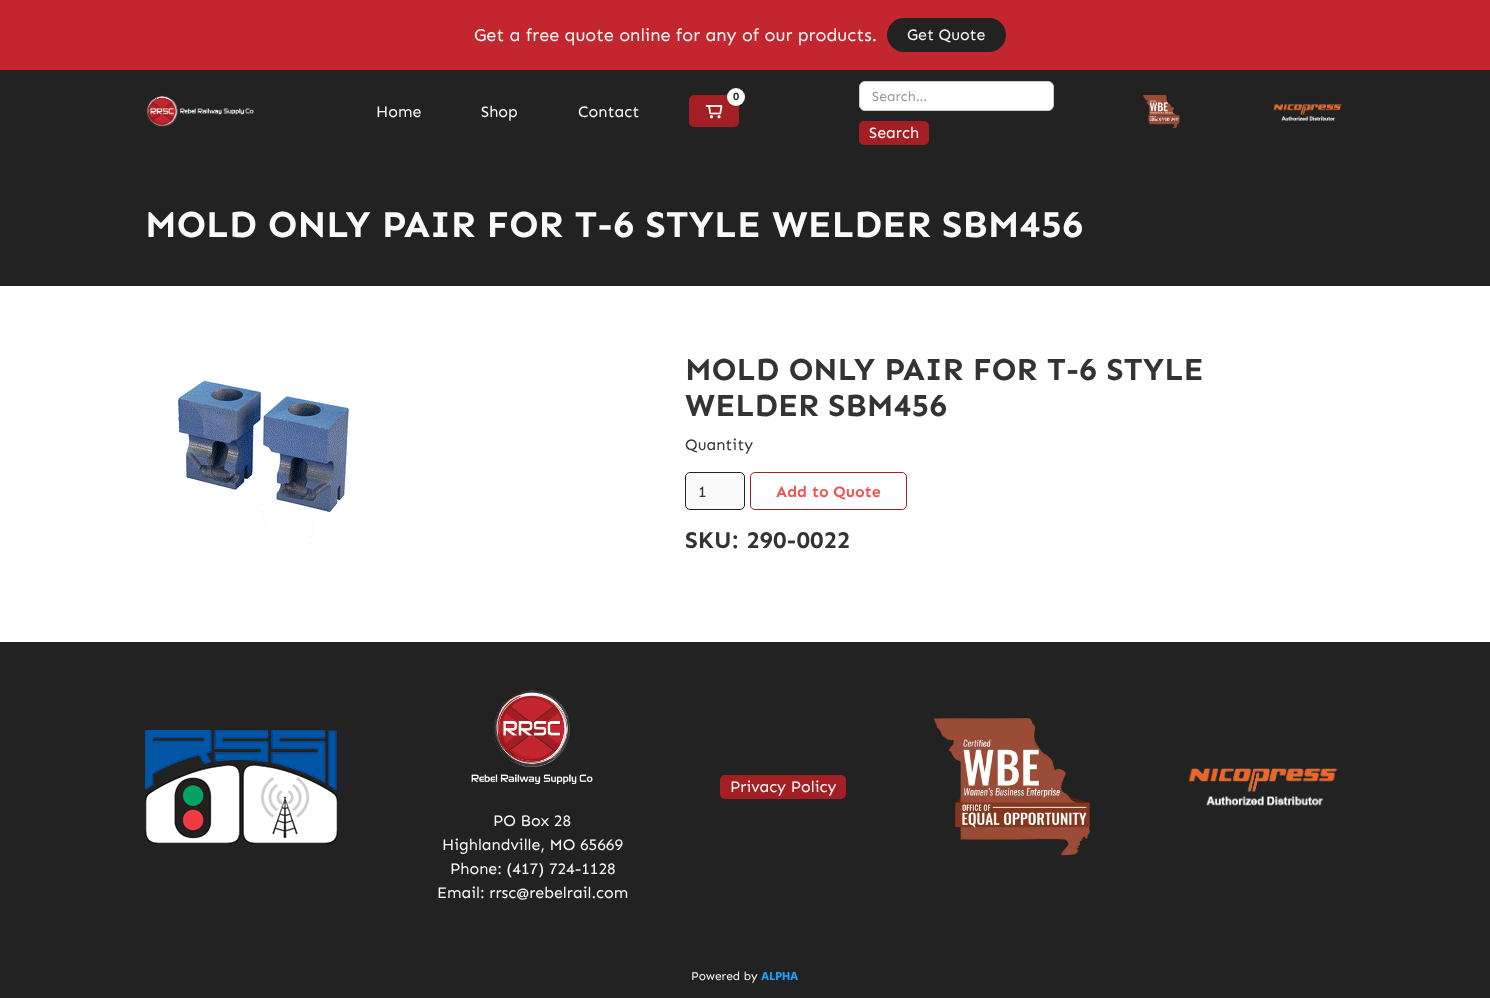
<?xml version="1.0" encoding="UTF-8"?>
<svg xmlns="http://www.w3.org/2000/svg" width="1490" height="998">
    <rect width="100%" height="100%" fill="#FFFFFF"/>
    <rect x="0" y="0" width="1490" height="70" fill="#C3262F"/>
    <text x="474" y="41" font-family="Sen" font-size="18" fill="#F9F9F9">Get a free quote online for any of our products.</text>
    <rect x="887" y="18" width="119" height="34" rx="17" fill="#222222"/>
    <text x="907" y="40" font-family="Sen" font-size="16" fill="#F9F9F9">Get Quote</text>
    <rect x="0" y="70" width="1490" height="216" fill="#222222"/>
    <image x="146" y="95" width="108" height="32" href="img_01.png"/>
    <rect x="689" y="95" width="50" height="32" rx="5" fill="#A41F24"/>
    <circle cx="736" cy="97" r="9" fill="#FFFFFF"/>
    <text x="733" y="100" font-family="Sen" font-size="11" font-weight="700" fill="#222222">0</text>
    <image x="705" y="105" width="18" height="14" href="img_02.png"/>
    <text x="376" y="117" font-family="Sen" font-size="16" fill="#F9F9F9">Home</text>
    <text x="481" y="117" font-family="Sen" font-size="16" fill="#F9F9F9">Shop</text>
    <text x="578" y="117" font-family="Sen" font-size="16" fill="#F9F9F9">Contact</text>
    <rect x="859.5" y="81.5" width="194" height="29" rx="5.5" fill="#FFFFFF" stroke="#CCCCCC"/>
    <text x="872" y="101" font-family="Sen" font-size="14" fill="#999999">Search…</text>
    <rect x="859" y="121" width="70" height="24" rx="5" fill="#A41F24"/>
    <text x="869" y="138" font-family="Sen" font-size="16" fill="#FFFFFF">Search</text>
    <image x="1143" y="95" width="37" height="33" href="img_03.png"/>
    <image x="1273" y="103" width="69" height="18" href="img_04.png"/>
    <text x="145" y="237" font-family="Sen" font-size="38" font-weight="700" fill="#F9F9F9">MOLD ONLY PAIR FOR T-6 STYLE WELDER SBM456</text>
    <image x="176" y="380" width="175" height="167" href="img_05.png"/>
    <text font-family="Sen" font-size="32" font-weight="700" fill="#333333">
        <tspan x="685" y="380">MOLD ONLY PAIR FOR T-6 STYLE</tspan>
        <tspan x="685" y="416">WELDER SBM456</tspan>
    </text>
    <text x="685" y="450" font-family="Sen" font-size="16" fill="#333333">Quantity</text>
    <rect x="685.5" y="472.5" width="59" height="37" rx="4.5" fill="#FAFAFA" stroke="#222222"/>
    <text x="698" y="497" font-family="Sen" font-size="16" fill="#333333">1</text>
    <rect x="750.5" y="472.5" width="156" height="37" rx="4.5" fill="none" stroke="#A41F24"/>
    <text x="776" y="497" font-family="Sen" font-size="16" font-weight="700" fill="#EB5757">Add to Quote</text>
    <text x="685" y="548" font-family="Sen" font-size="24" font-weight="700" fill="#333333">SKU: 290-0022</text>
    <rect x="0" y="642" width="1490" height="356" fill="#222222"/>
    <image x="145" y="730" width="193" height="114" href="img_06.png"/>
    <rect x="720" y="775" width="126" height="24" rx="5" fill="#A41F24"/>
    <text x="730" y="792" font-family="Sen" font-size="16" fill="#FFFFFF">Privacy Policy</text>
    <image x="934" y="718" width="156" height="138" href="img_07.png"/>
    <image x="1188" y="768" width="150" height="38" href="img_08.png"/>
    <image x="471" y="690" width="122" height="94" href="img_09.png"/>
    <text x="493" y="826" font-family="Sen" font-size="16" fill="#F9F9F9">PO Box 28</text>
    <text x="442" y="850" font-family="Sen" font-size="16" fill="#F9F9F9">Highlandville, MO 65669</text>
    <text x="450" y="874" font-family="Sen" font-size="16" fill="#F9F9F9">Phone: (417) 724-1128</text>
    <text x="437" y="898" font-family="Sen" font-size="16" fill="#F9F9F9">Email: rrsc@rebelrail.com</text>
    <text x="691" y="980" font-family="Sen" font-size="12" fill="#F9F9F9">Powered by</text>
    <text x="761" y="980" font-family="Hind" font-size="12" font-weight="700" fill="#1EA1FF">ALPHA</text>
</svg>
